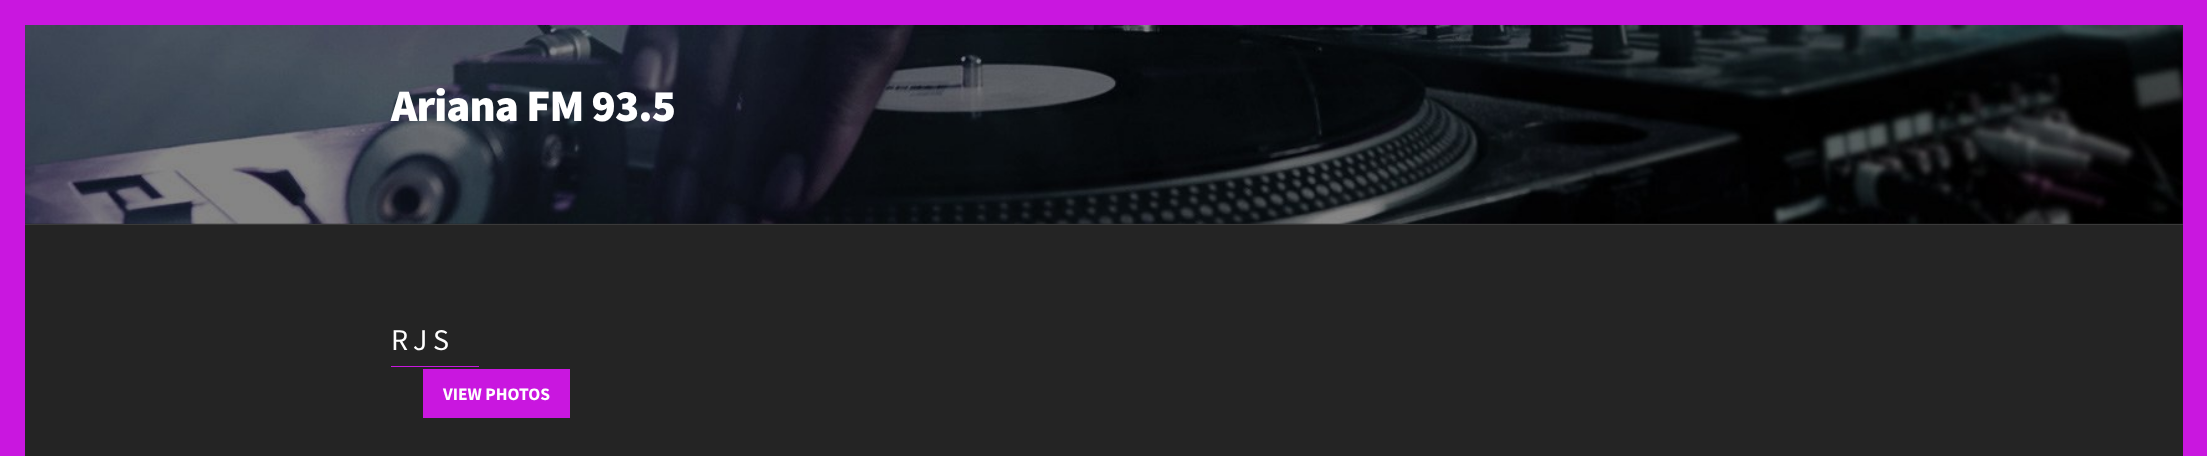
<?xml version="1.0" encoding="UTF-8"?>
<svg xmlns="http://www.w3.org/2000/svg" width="2207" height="456">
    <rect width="100%" height="100%" fill="#242424"/>
    <rect x="12.5" y="12.5" width="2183" height="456" fill="none" stroke="#C917DF" stroke-width="25"/>
    <image x="25" y="25" width="2158" height="199" href="img_01.png"/>
    <rect x="25" y="224" width="2158" height="1" fill="#3A3A3A"/>
    <text x="391" y="121" font-family="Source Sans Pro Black" font-size="45" font-weight="900" letter-spacing="-0.9" fill="#FFFFFF">Ariana FM 93.5</text>
    <text x="391" y="350" font-family="Source Sans Pro" font-size="30" letter-spacing="5.5" fill="#FFFFFF">RJS</text>
    <rect x="391" y="366" width="88" height="1" fill="#C917DF"/>
    <rect x="423" y="369" width="147" height="49" fill="#C917DF"/>
    <text x="443" y="400" font-family="Source Sans Pro" font-size="17.5" font-weight="700" fill="#FFFFFF">VIEW PHOTOS</text>
</svg>
